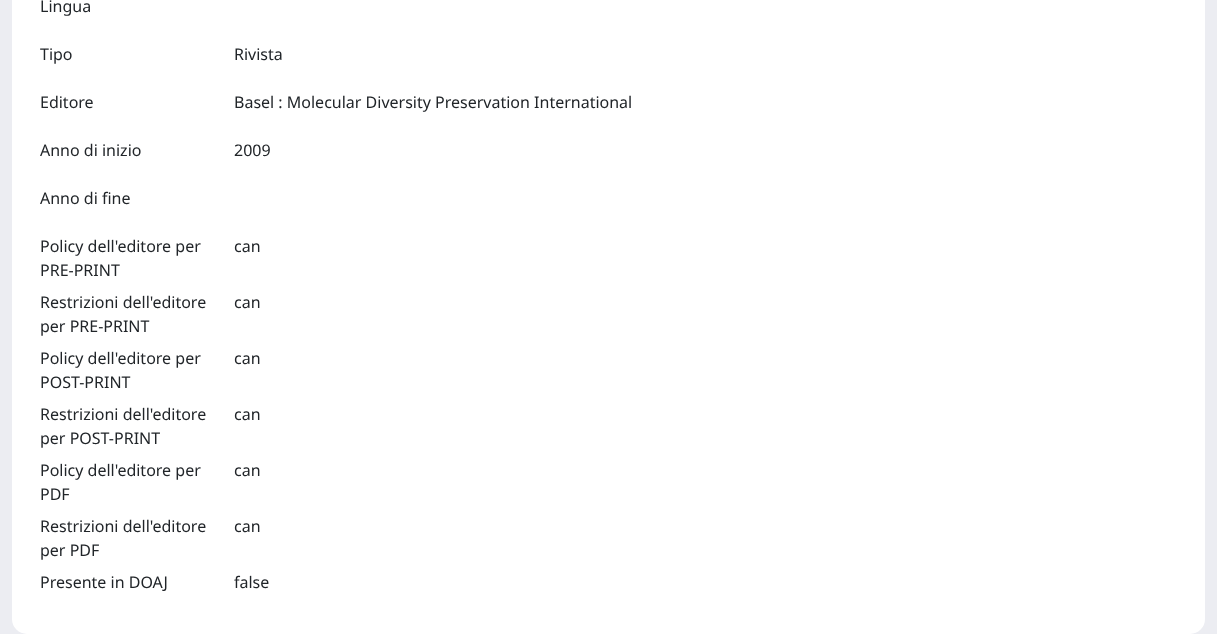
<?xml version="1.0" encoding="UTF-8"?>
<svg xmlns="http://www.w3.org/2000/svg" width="1217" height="634">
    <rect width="100%" height="100%" fill="#ECEDF2"/>
    <rect x="12" y="-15" width="1193" height="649" rx="15" fill="#FFFFFF"/>
    <text x="40" y="12" font-family="Noto Sans" font-size="16" fill="#212529">Lingua</text>
    <text x="40" y="60" font-family="Noto Sans" font-size="16" fill="#212529">Tipo</text>
    <text x="234" y="60" font-family="Noto Sans" font-size="16" fill="#212529">Rivista</text>
    <text x="40" y="108" font-family="Noto Sans" font-size="16" fill="#212529">Editore</text>
    <text x="234" y="108" font-family="Noto Sans" font-size="16" fill="#212529">Basel : Molecular Diversity Preservation International</text>
    <text x="40" y="156" font-family="Noto Sans" font-size="16" fill="#212529">Anno di inizio</text>
    <text x="234" y="156" font-family="Noto Sans" font-size="16" fill="#212529">2009</text>
    <text x="40" y="204" font-family="Noto Sans" font-size="16" fill="#212529">Anno di fine</text>
    <text font-family="Noto Sans" font-size="16" fill="#212529">
        <tspan x="40" y="252">Policy dell'editore per</tspan>
        <tspan x="40" y="276">PRE-PRINT</tspan>
    </text>
    <text x="234" y="252" font-family="Noto Sans" font-size="16" fill="#212529">can</text>
    <text font-family="Noto Sans" font-size="16" fill="#212529">
        <tspan x="40" y="308">Restrizioni dell'editore</tspan>
        <tspan x="40" y="332">per PRE-PRINT</tspan>
    </text>
    <text x="234" y="308" font-family="Noto Sans" font-size="16" fill="#212529">can</text>
    <text font-family="Noto Sans" font-size="16" fill="#212529">
        <tspan x="40" y="364">Policy dell'editore per</tspan>
        <tspan x="40" y="388">POST-PRINT</tspan>
    </text>
    <text x="234" y="364" font-family="Noto Sans" font-size="16" fill="#212529">can</text>
    <text font-family="Noto Sans" font-size="16" fill="#212529">
        <tspan x="40" y="420">Restrizioni dell'editore</tspan>
        <tspan x="40" y="444">per POST-PRINT</tspan>
    </text>
    <text x="234" y="420" font-family="Noto Sans" font-size="16" fill="#212529">can</text>
    <text font-family="Noto Sans" font-size="16" fill="#212529">
        <tspan x="40" y="476">Policy dell'editore per</tspan>
        <tspan x="40" y="500">PDF</tspan>
    </text>
    <text x="234" y="476" font-family="Noto Sans" font-size="16" fill="#212529">can</text>
    <text font-family="Noto Sans" font-size="16" fill="#212529">
        <tspan x="40" y="532">Restrizioni dell'editore</tspan>
        <tspan x="40" y="556">per PDF</tspan>
    </text>
    <text x="234" y="532" font-family="Noto Sans" font-size="16" fill="#212529">can</text>
    <text x="40" y="588" font-family="Noto Sans" font-size="16" fill="#212529">Presente in DOAJ</text>
    <text x="234" y="588" font-family="Noto Sans" font-size="16" fill="#212529">false</text>
</svg>
